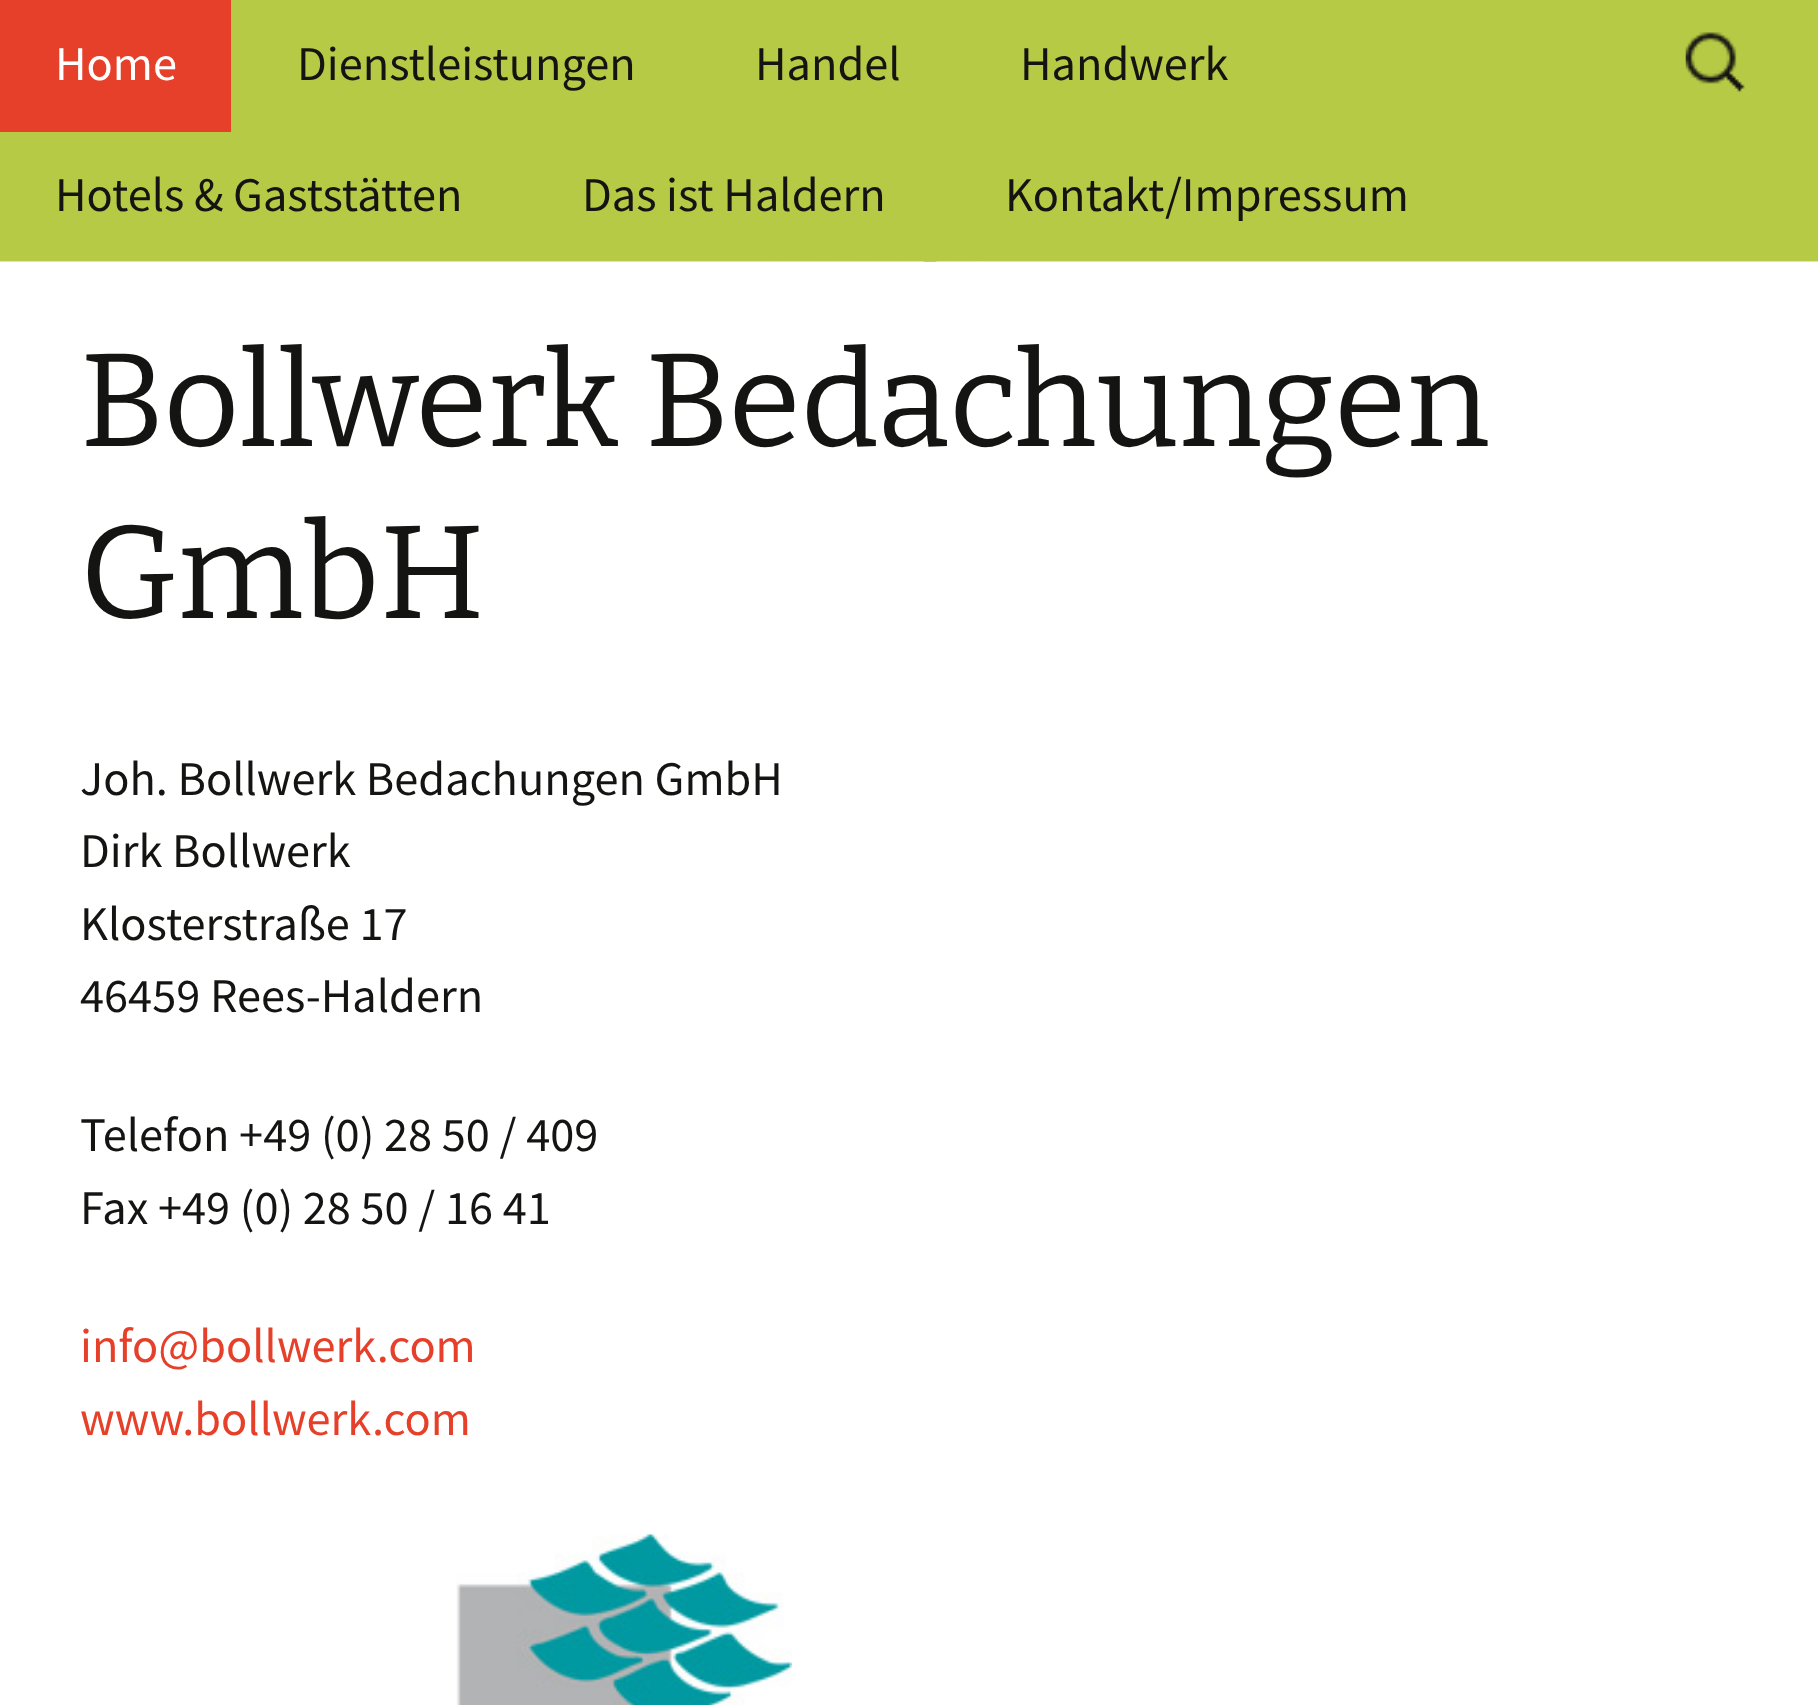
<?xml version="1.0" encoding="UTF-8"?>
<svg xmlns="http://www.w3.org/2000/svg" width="1818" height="1705">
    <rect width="100%" height="100%" fill="#FFFFFF"/>
    <image x="0" y="261" width="1818" height="1" href="img_01.png"/>
    <rect x="0" y="0" width="1818" height="261" fill="#B7CA45"/>
    <rect x="0" y="0" width="231" height="132" fill="#E6402A"/>
    <text x="55" y="80" font-family="Source Sans Pro" font-size="48.4" fill="#FFFFFF">Home</text>
    <text x="297" y="80" font-family="Source Sans Pro" font-size="48.4" fill="#141412">Dienstleistungen</text>
    <text x="755" y="80" font-family="Source Sans Pro" font-size="48.4" fill="#141412">Handel</text>
    <text x="1020" y="80" font-family="Source Sans Pro" font-size="48.4" fill="#141412">Handwerk</text>
    <text x="55" y="211" font-family="Source Sans Pro" font-size="48.4" fill="#141412">Hotels &amp; Gaststätten</text>
    <text x="582" y="211" font-family="Source Sans Pro" font-size="48.4" fill="#141412">Das ist Haldern</text>
    <text x="1005" y="211" font-family="Source Sans Pro" font-size="48.4" fill="#141412">Kontakt/Impressum</text>
    <image x="1685" y="32" width="60" height="60" href="img_02.png"/>
    <text font-family="Bitter" font-size="132" font-weight="100" fill="#141412">
        <tspan x="80" y="446">Bollwerk Bedachungen</tspan>
        <tspan x="80" y="618">GmbH</tspan>
    </text>
    <text font-family="Source Sans Pro" font-size="48.4" fill="#141412">
        <tspan x="80" y="795">Joh. Bollwerk Bedachungen GmbH</tspan>
        <tspan x="80" y="867">Dirk Bollwerk</tspan>
        <tspan x="80" y="940">Klosterstraße 17</tspan>
        <tspan x="80" y="1012">46459 Rees-Haldern</tspan>
    </text>
    <text font-family="Source Sans Pro" font-size="48.4" fill="#141412">
        <tspan x="80" y="1151">Telefon +49 (0) 28 50 / 409</tspan>
        <tspan x="80" y="1224">Fax +49 (0) 28 50 / 16 41</tspan>
    </text>
    <text font-family="Source Sans Pro" font-size="48.4" fill="#E6402A">
        <tspan x="80" y="1362">info@bollwerk.com</tspan>
        <tspan x="80" y="1435">www.bollwerk.com</tspan>
    </text>
    <image x="456" y="1534" width="336" height="171" href="img_03.png"/>
</svg>
